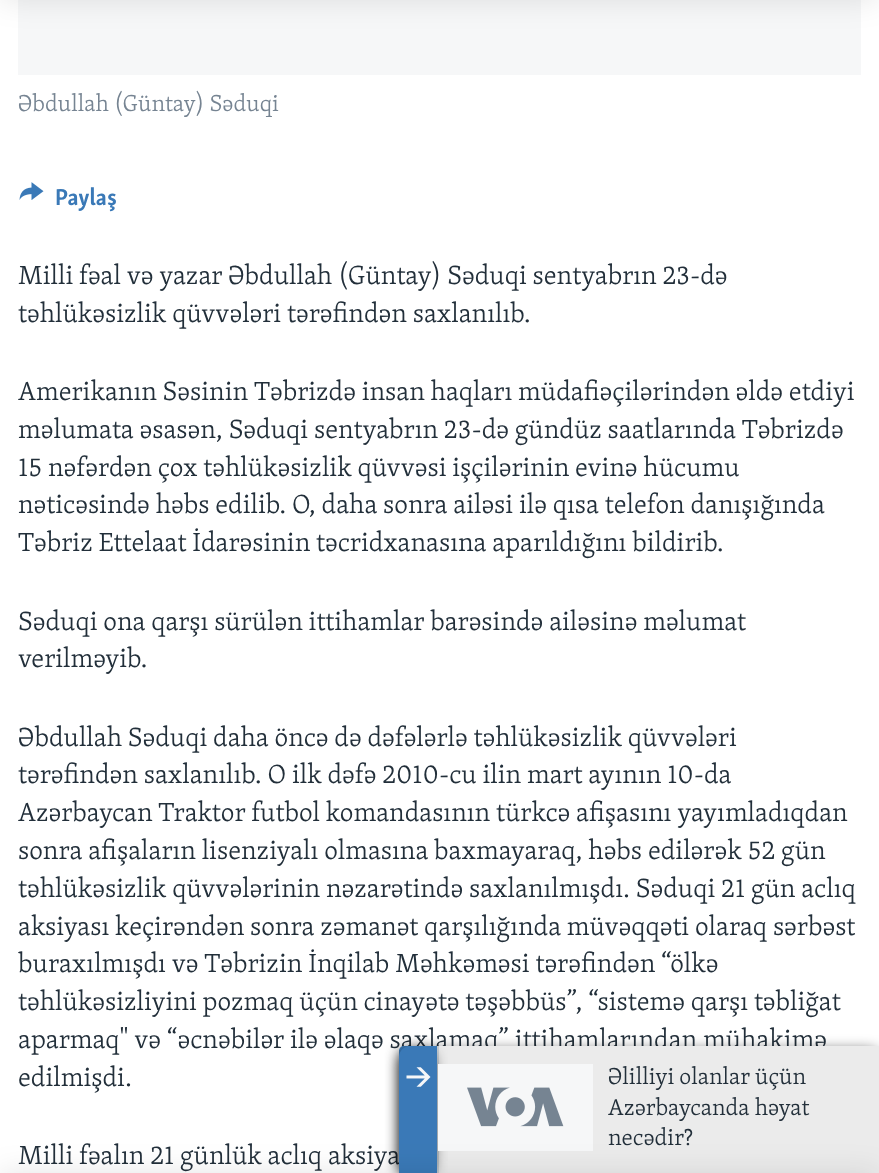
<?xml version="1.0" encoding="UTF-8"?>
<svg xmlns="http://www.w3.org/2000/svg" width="879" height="1173">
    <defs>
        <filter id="blur1" x="-50%" y="-200%" width="200%" height="500%"><feGaussianBlur stdDeviation="15"/></filter>
        <filter id="blur2" x="-50%" y="-200%" width="200%" height="500%"><feGaussianBlur stdDeviation="7.5"/></filter>
        <clipPath id="clip1"><path d="M 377 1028 H 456 V 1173 H 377 Z M 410 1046 H 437 V 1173 H 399 V 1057 C 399 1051 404 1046 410 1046 Z" clip-rule="evenodd"/></clipPath>
    </defs>
    <rect width="100%" height="100%" fill="#FFFFFF"/>
    <rect x="18" y="0" width="843" height="75" fill="#F6F7F8"/>
    <rect x="0" y="-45" width="879" height="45" fill="#000000" fill-opacity="0.1" filter="url(#blur1)"/>
    <text x="18" y="1048" font-family="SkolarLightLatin" font-size="27" font-weight="300" fill="#222F3A">aparmaq" və “əcnəbilər ilə əlaqə saxlamaq” ittihamlarından mühakimə</text>
    <text x="18" y="1164" font-family="SkolarLightLatin" font-size="27" font-weight="300" fill="#222F3A">Milli fəalın 21 günlük aclıq aksiya</text>
    <rect x="402" y="1052" width="474" height="121" rx="1.5" fill="#000000" fill-opacity="0.85" filter="url(#blur2)"/>
    <path d="M 404 1046 H 879 V 1173 H 399 V 1051 C 399 1048 401 1046 404 1046 Z" fill="#3A79B7"/>
    <rect x="439" y="1046" width="440" height="127" fill="#EBEBEB"/>
    <rect x="437" y="1046" width="2" height="127" fill="#CBD1D6"/>
    <g clip-path="url(#clip1)">
        <rect x="401" y="1052" width="31" height="121" rx="8" fill="#000000" fill-opacity="0.85" filter="url(#blur2)"/>
    </g>
    <rect x="438" y="1064" width="155" height="87" fill="#F6F7F8"/>
    <rect x="0" y="1173" width="879" height="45" fill="#000000" fill-opacity="0.1" filter="url(#blur1)"/>
    <text x="18" y="111" font-family="SkolarLightLatin" font-size="23.6" font-weight="300" fill="#768492">Əbdullah (Güntay) Səduqi</text>
    <image x="19" y="182" width="25" height="18" href="img_01.png"/>
    <text x="55" y="205" font-family="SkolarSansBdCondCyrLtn" font-size="23.6" font-weight="700" fill="#3A79B7">Paylaş</text>
    <text font-family="SkolarLightLatin" font-size="27" font-weight="300" fill="#222F3A">
        <tspan x="18" y="284">Milli fəal və yazar Əbdullah (Güntay) Səduqi sentyabrın 23-də</tspan>
        <tspan x="18" y="322">təhlükəsizlik qüvvələri tərəfindən saxlanılıb.</tspan>
    </text>
    <text font-family="SkolarLightLatin" font-size="27" font-weight="300" fill="#222F3A">
        <tspan x="18" y="400">Amerikanın Səsinin Təbrizdə insan haqları müdafiəçilərindən əldə etdiyi</tspan>
        <tspan x="18" y="438">məlumata əsasən, Səduqi sentyabrın 23-də gündüz saatlarında Təbrizdə</tspan>
        <tspan x="18" y="476">15 nəfərdən çox təhlükəsizlik qüvvəsi işçilərinin evinə hücumu</tspan>
        <tspan x="18" y="513">nəticəsində həbs edilib. O, daha sonra ailəsi ilə qısa telefon danışığında</tspan>
        <tspan x="18" y="551">Təbriz Ettelaat İdarəsinin təcridxanasına aparıldığını bildirib.</tspan>
    </text>
    <text font-family="SkolarLightLatin" font-size="27" font-weight="300" fill="#222F3A">
        <tspan x="18" y="630">Səduqi ona qarşı sürülən ittihamlar barəsində ailəsinə məlumat</tspan>
        <tspan x="18" y="667">verilməyib.</tspan>
    </text>
    <text font-family="SkolarLightLatin" font-size="27" font-weight="300" fill="#222F3A">
        <tspan x="18" y="746">Əbdullah Səduqi daha öncə də dəfələrlə təhlükəsizlik qüvvələri</tspan>
        <tspan x="18" y="783">tərəfindən saxlanılıb. O ilk dəfə 2010-cu ilin mart ayının 10-da</tspan>
        <tspan x="18" y="821">Azərbaycan Traktor futbol komandasının türkcə afişasını yayımladıqdan</tspan>
        <tspan x="18" y="859">sonra afişaların lisenziyalı olmasına baxmayaraq, həbs edilərək 52 gün</tspan>
        <tspan x="18" y="897">təhlükəsizlik qüvvələrinin nəzarətində saxlanılmışdı. Səduqi 21 gün aclıq</tspan>
        <tspan x="18" y="935">aksiyası keçirəndən sonra zəmanət qarşılığında müvəqqəti olaraq sərbəst</tspan>
        <tspan x="18" y="972">buraxılmışdı və Təbrizin İnqilab Məhkəməsi tərəfindən “ölkə</tspan>
        <tspan x="18" y="1010">təhlükəsizliyini pozmaq üçün cinayətə təşəbbüs”, “sistemə qarşı təbliğat</tspan>
    </text>
    <text x="18" y="1086" font-family="SkolarLightLatin" font-size="27" font-weight="300" fill="#222F3A">edilmişdi.</text>
    <image x="406" y="1067" width="25" height="20" href="img_02.png"/>
    <image x="467" y="1087" width="97" height="40" href="img_03.png"/>
    <text font-family="SkolarLightLatin" font-size="23.6" font-weight="300" fill="#222F3A">
        <tspan x="608" y="1084">Əlilliyi olanlar üçün</tspan>
        <tspan x="608" y="1115">Azərbaycanda həyat</tspan>
        <tspan x="608" y="1145">necədir?</tspan>
    </text>
</svg>
